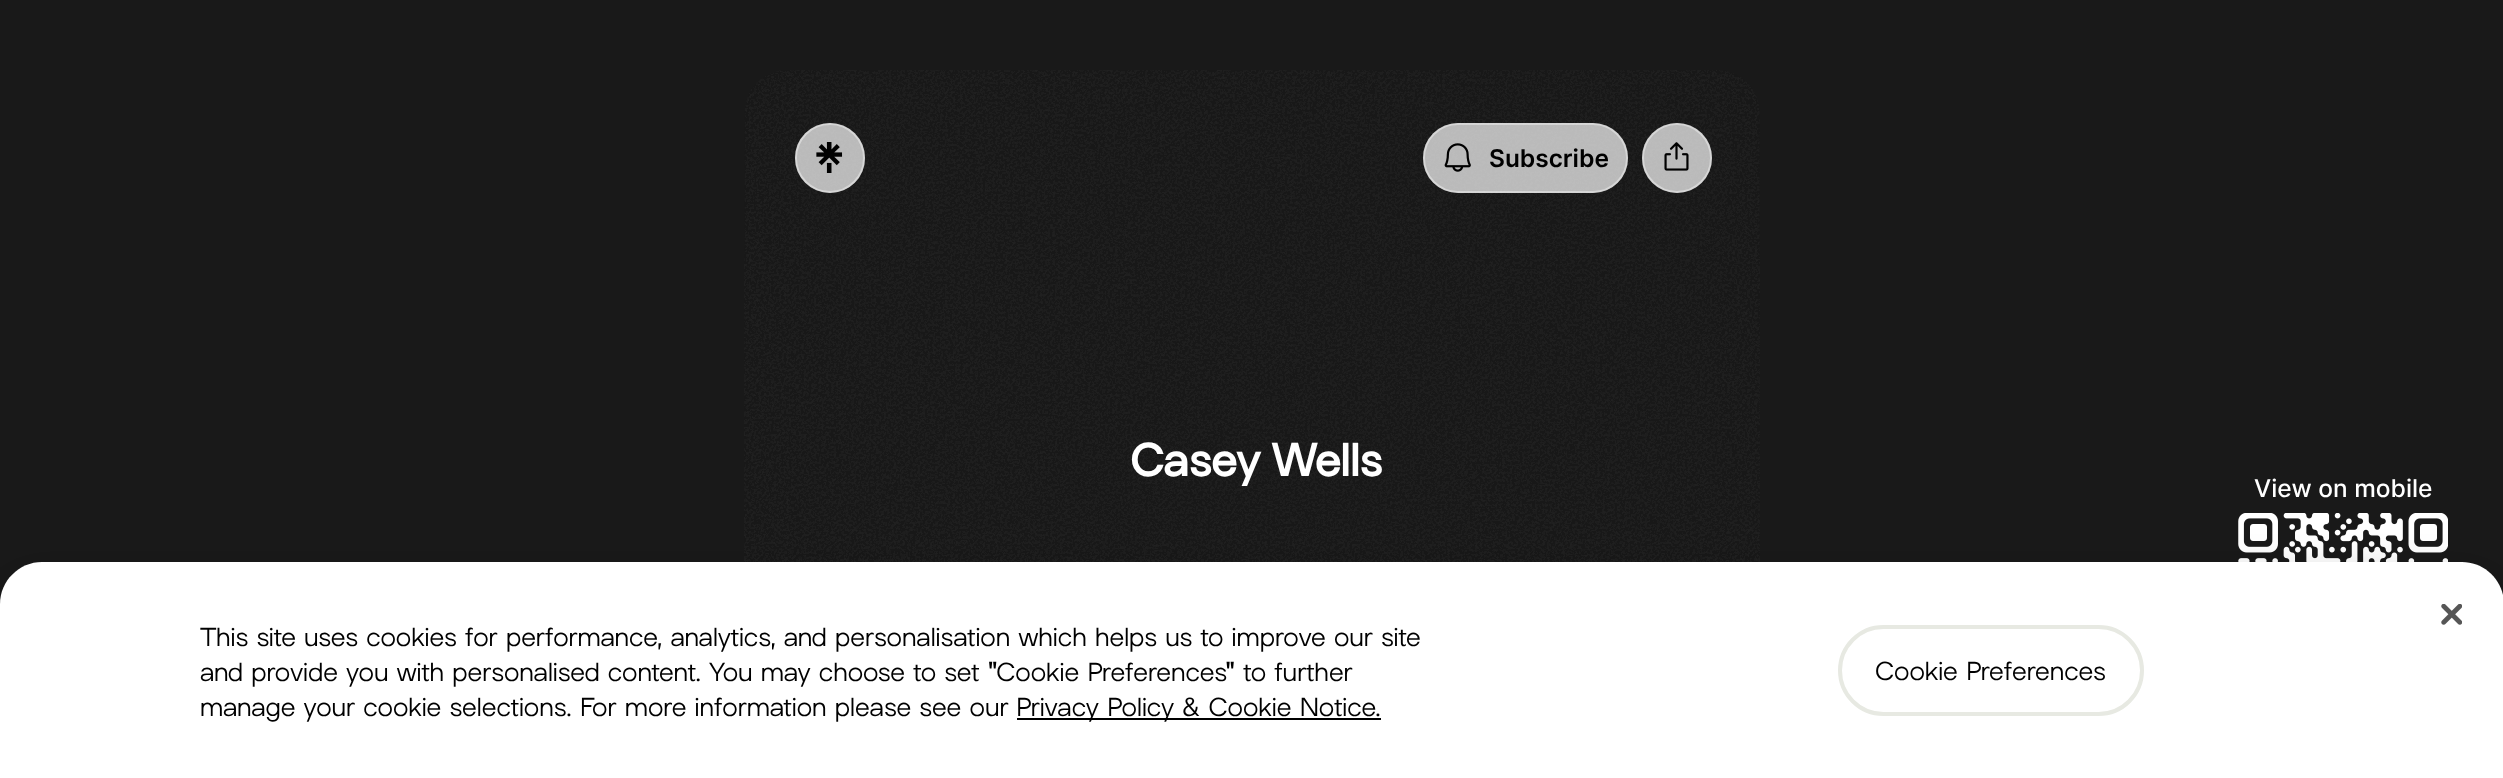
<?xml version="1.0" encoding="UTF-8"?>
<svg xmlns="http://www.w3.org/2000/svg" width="2503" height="778">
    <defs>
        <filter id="blur1" x="-50%" y="-200%" width="200%" height="500%"><feGaussianBlur stdDeviation="18.5"/></filter>
    </defs>
    <rect width="100%" height="100%" fill="#191919"/>
    <image x="744" y="70" width="1016" height="492" href="img_04.png"/>
    <circle cx="830" cy="158" r="35" fill="#FFFFFF" fill-opacity="0.7"/>
    <circle cx="830" cy="158" r="34" fill="none" stroke="#FFFFFF" stroke-opacity="0.4" stroke-width="2"/>
    <image x="816" y="142" width="27" height="31" href="img_01.png"/>
    <rect x="1423" y="123" width="205" height="70" rx="35" fill="#FFFFFF" fill-opacity="0.7"/>
    <rect x="1424" y="124" width="203" height="68" rx="34" fill="none" stroke="#FFFFFF" stroke-opacity="0.4" stroke-width="2"/>
    <image x="1444" y="143" width="27" height="29" href="img_02.png"/>
    <text x="1489" y="167" font-family="Inter" font-size="24.5" font-weight="600" fill="#000000">Subscribe</text>
    <circle cx="1677" cy="158" r="35" fill="#FFFFFF" fill-opacity="0.7"/>
    <circle cx="1677" cy="158" r="34" fill="none" stroke="#FFFFFF" stroke-opacity="0.4" stroke-width="2"/>
    <image x="1664" y="142" width="25" height="29" href="img_03.png"/>
    <text x="1130" y="476" word-spacing="-2" font-family="'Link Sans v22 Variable'" font-size="42" font-weight="700" fill="#FFFFFF">Casey Wells</text>
    <text x="2254" y="497" font-family="Inter" font-size="24.5" font-weight="500" fill="#FFFFFF">View on mobile</text>
    <image x="2238" y="513" width="210" height="49" href="img_05.png"/>
    <rect x="-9" y="572" width="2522" height="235" rx="51" fill="#000000" fill-opacity="0.18" filter="url(#blur1)"/>
    <path d="M 42 562 H 2462 C 2485 562 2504 581 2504 604 V 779 H 0 V 604 C 0 581 19 562 42 562 Z" fill="#FFFFFF"/>
    <image x="2441" y="604" width="21" height="21" href="img_06.png"/>
    <text font-family="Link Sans" font-size="23.9" font-weight="300" fill="#000000">
        <tspan x="200" y="646">This site uses cookies for performance, analytics, and personalisation which helps us to improve our site</tspan>
        <tspan x="200" y="681">and provide you with personalised content. You may choose to set "Cookie Preferences" to further</tspan>
        <tspan x="200" y="716">manage your cookie selections. For more information please see our</tspan>
    </text>
    <rect x="1017" y="718" width="364" height="2" fill="#000000"/>
    <text x="1016" y="716" font-family="Link Sans" font-size="23.9" font-weight="300" fill="#000000">Privacy Policy &amp; Cookie Notice.</text>
    <rect x="1840" y="627" width="302" height="87" rx="43.5" fill="none" stroke="#E7E9E2" stroke-width="4"/>
    <text x="1875" y="680" font-family="Link Sans" font-size="23.9" font-weight="300" fill="#000000">Cookie Preferences</text>
</svg>
